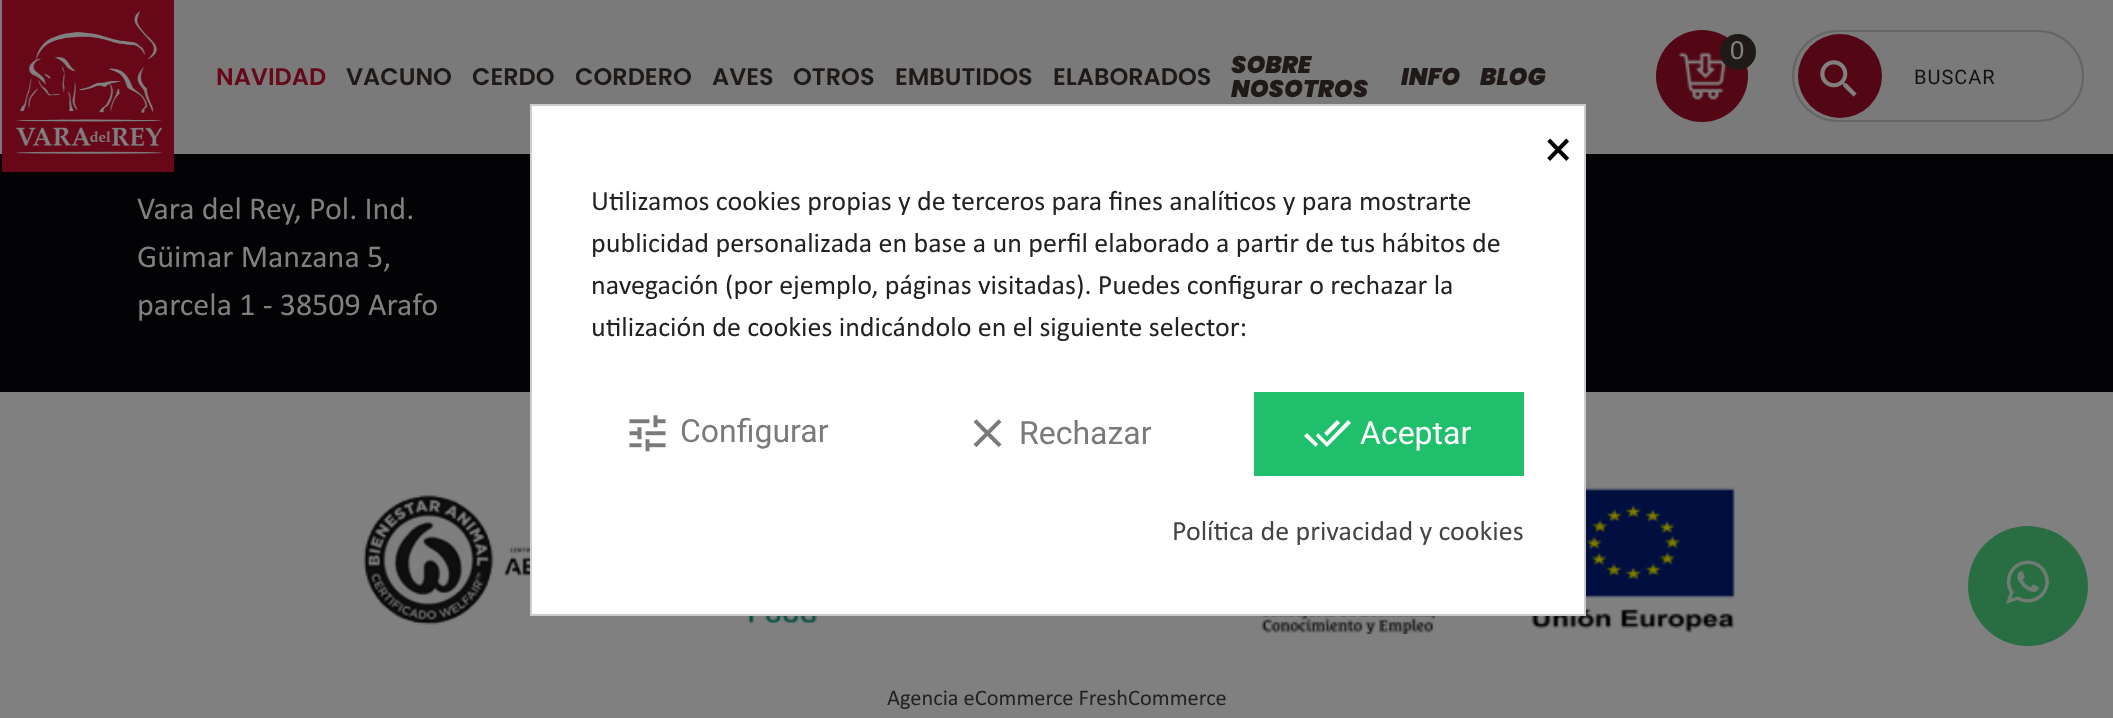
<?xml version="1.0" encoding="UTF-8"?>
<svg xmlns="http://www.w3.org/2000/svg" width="2113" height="718">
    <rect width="100%" height="100%" fill="#030305"/>
    <rect x="0" y="0" width="2113" height="154" fill="#7A7A7A"/>
    <path d="M 2 -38 V 172 H 174 V -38 Z M 30 0 V 154 H 146 V 0 Z" fill="#670717" fill-rule="evenodd"/>
    <rect x="30" y="0" width="116" height="154" fill="#670717"/>
    <image x="15" y="10" width="148" height="144" href="img_01.png"/>
    <circle cx="1702" cy="76" r="46" fill="#530613"/>
    <image x="1678" y="52" width="48" height="49" href="img_02.png"/>
    <circle cx="1738" cy="52" r="18" fill="#1F1A17"/>
    <text x="1730" y="59" font-family="Calibri" font-size="28" fill="#808080">0</text>
    <text x="216" y="85" font-family="Poppins" font-size="24" font-weight="600" fill="#670717">NAVIDAD</text>
    <text x="346" y="85" font-family="Poppins" font-size="24" font-weight="600" fill="#1F1A17">VACUNO</text>
    <text x="472" y="85" font-family="Poppins" font-size="24" font-weight="600" fill="#1F1A17">CERDO</text>
    <text x="575" y="85" font-family="Poppins" font-size="24" font-weight="600" fill="#1F1A17">CORDERO</text>
    <text x="712" y="85" font-family="Poppins" font-size="24" font-weight="600" fill="#1F1A17">AVES</text>
    <text x="793" y="85" font-family="Poppins" font-size="24" font-weight="600" fill="#1F1A17">OTROS</text>
    <text x="895" y="85" font-family="Poppins" font-size="24" font-weight="600" fill="#1F1A17">EMBUTIDOS</text>
    <text x="1053" y="85" font-family="Poppins" font-size="24" font-weight="600" fill="#1F1A17">ELABORADOS</text>
    <text font-family="Poppins" font-size="24" font-weight="900" font-style="italic" fill="#1F1A17">
        <tspan x="1231" y="73">SOBRE</tspan>
        <tspan x="1231" y="97">NOSOTROS</tspan>
    </text>
    <text x="1401" y="85" font-family="Poppins" font-size="24" font-weight="900" font-style="italic" fill="#1F1A17">INFO</text>
    <text x="1480" y="85" font-family="Poppins" font-size="24" font-weight="900" font-style="italic" fill="#1F1A17">BLOG</text>
    <rect x="1793" y="31" width="290" height="90" rx="45" fill="none" stroke="#656565" stroke-width="2"/>
    <circle cx="1840" cy="76" r="42" fill="#530613"/>
    <image x="1820" y="60" width="37" height="37" href="img_03.png"/>
    <text x="1914" y="84" font-family="Roboto" font-size="20" letter-spacing="1" fill="#131212">BUSCAR</text>
    <text font-family="Calibri" font-size="32" fill="#808080">
        <tspan x="137" y="219">Vara del Rey, Pol. Ind.</tspan>
        <tspan x="137" y="267">Güimar Manzana 5,</tspan>
        <tspan x="137" y="315">parcela 1 - 38509 Arafo</tspan>
    </text>
    <rect x="0" y="392" width="2113" height="326" fill="#808080"/>
    <image x="363" y="495" width="167" height="130" href="img_04.png"/>
    <image x="747" y="616" width="70" height="8" href="img_05.png"/>
    <image x="1232" y="616" width="230" height="18" href="img_06.png"/>
    <image x="1529" y="487" width="206" height="146" href="img_07.png"/>
    <text x="887" y="705" font-family="Calibri" font-size="22.4" fill="#222222">Agencia eCommerce FreshCommerce</text>
    <circle cx="2028" cy="586" r="60" fill="#296E43"/>
    <image x="2006" y="560" width="43" height="44" href="img_08.png"/>
    <rect x="531" y="105" width="1054" height="510" fill="#FFFFFF" stroke="#CCCCCC" stroke-width="2"/>
    <text x="1545" y="166" font-family="Roboto" font-size="50" fill="#000000">×</text>
    <text font-family="Calibri" font-size="28" fill="#222222">
        <tspan x="591" y="210">Utilizamos cookies propias y de terceros para fines analíticos y para mostrarte</tspan>
        <tspan x="591" y="252">publicidad personalizada en base a un perfil elaborado a partir de tus hábitos de</tspan>
        <tspan x="591" y="294">navegación (por ejemplo, páginas visitadas). Puedes configurar o rechazar la</tspan>
        <tspan x="591" y="336">utilización de cookies indicándolo en el siguiente selector:</tspan>
    </text>
    <image x="629" y="415" width="37" height="37" href="img_09.png"/>
    <text x="680" y="442" font-family="Roboto" font-size="32" fill="#7A7A7A">Configurar</text>
    <image x="973" y="419" width="29" height="29" href="img_10.png"/>
    <text x="1019" y="444" font-family="Roboto" font-size="32" fill="#7A7A7A">Rechazar</text>
    <rect x="1254" y="392" width="270" height="84" fill="#20BF6B"/>
    <path d="M 1304 436 L 1307 433 L 1318 444 L 1316 447 Z M 1348 420 L 1351 423 L 1327 447 L 1316 436 L 1318 433 L 1327 442 Z M 1340 423 L 1327 436 L 1324 433 L 1337 420 Z" fill="#FFFFFF"/>
    <text x="1360" y="444" font-family="Roboto" font-size="32" fill="#FFFFFF">Aceptar</text>
    <text x="1172" y="540" font-family="Calibri" font-size="28" fill="#444444">Política de privacidad y cookies</text>
</svg>
